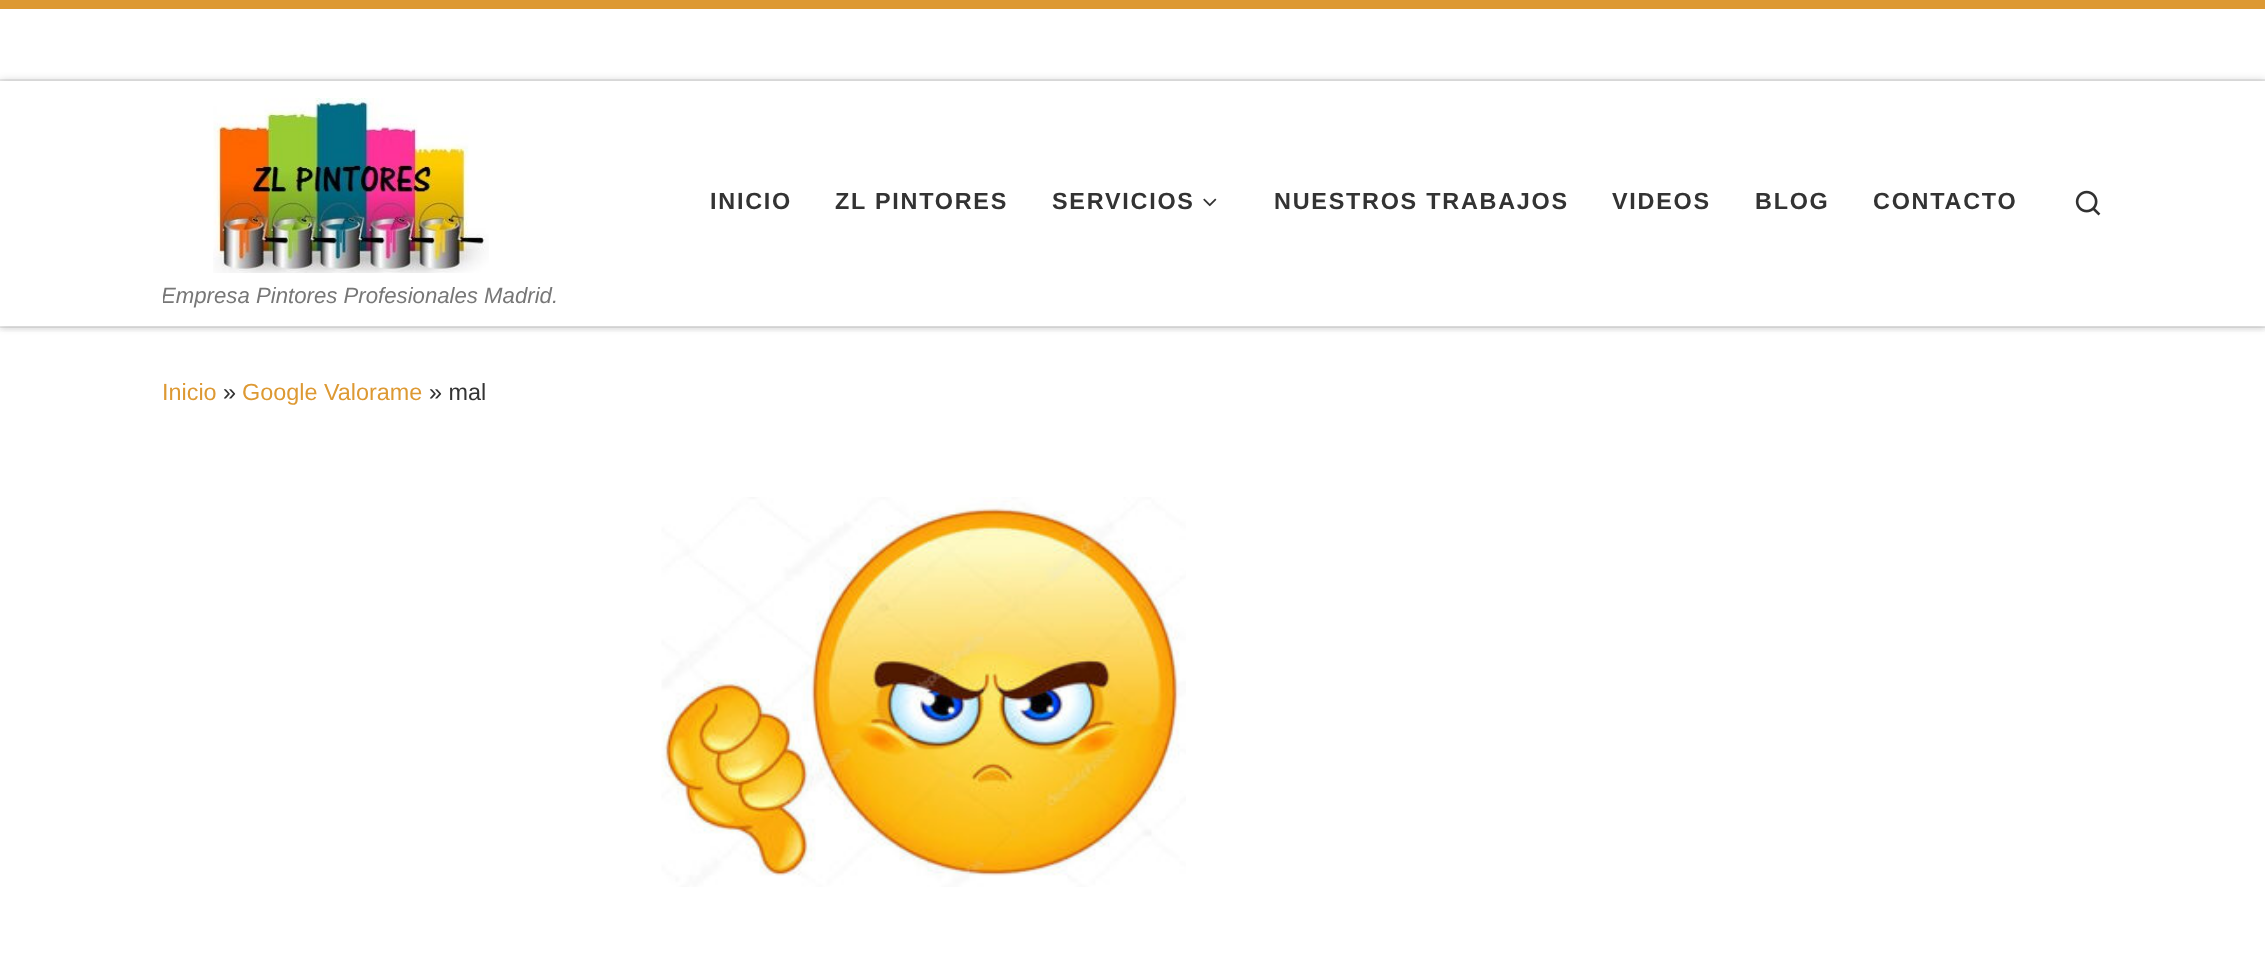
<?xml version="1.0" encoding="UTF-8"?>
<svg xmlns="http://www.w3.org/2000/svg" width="2265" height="953">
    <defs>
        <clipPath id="clip1"><rect x="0" y="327" width="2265" height="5"/></clipPath>
        <filter id="blur1" x="-50%" y="-200%" width="200%" height="500%"><feGaussianBlur stdDeviation="2"/></filter>
        <filter id="blur2" x="-50%" y="-200%" width="200%" height="500%"><feGaussianBlur stdDeviation="4.5"/></filter>
        <clipPath id="clip2"><rect x="163" y="81" width="397" height="245"/></clipPath>
    </defs>
    <rect width="100%" height="100%" fill="#FFFFFF"/>
    <g clip-path="url(#clip1)">
        <rect x="0" y="4" width="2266" height="327" fill="#666666" fill-opacity="0.08" filter="url(#blur1)"/>
    </g>
    <rect x="0" y="0" width="2265" height="9" fill="#DD9933"/>
    <rect x="0" y="327" width="2265" height="1" fill="#313131" fill-opacity="0.09"/>
    <rect x="0" y="79" width="2265" height="2" fill="#ECECEC"/>
    <rect x="0" y="326" width="2265" height="1" fill="#EFEFEF"/>
    <rect x="0" y="81" width="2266" height="245" fill="#000000" fill-opacity="0.2" filter="url(#blur2)"/>
    <rect x="0" y="81" width="2265" height="245" fill="#FFFFFF"/>
    <text x="710" y="209" font-family="Liberation Sans" font-size="23.4" font-weight="700" letter-spacing="1.75" fill="#333333">INICIO</text>
    <text x="835" y="209" font-family="Liberation Sans" font-size="23.4" font-weight="700" letter-spacing="1.75" fill="#333333">ZL PINTORES</text>
    <text x="1052" y="209" font-family="Liberation Sans" font-size="23.4" font-weight="700" letter-spacing="1.75" fill="#333333">SERVICIOS</text>
    <image x="1203" y="198" width="14" height="9" href="img_01.png"/>
    <text x="1274" y="209" font-family="Liberation Sans" font-size="23.4" font-weight="700" letter-spacing="1.75" fill="#333333">NUESTROS TRABAJOS</text>
    <text x="1612" y="209" font-family="Liberation Sans" font-size="23.4" font-weight="700" letter-spacing="1.75" fill="#333333">VIDEOS</text>
    <text x="1755" y="209" font-family="Liberation Sans" font-size="23.4" font-weight="700" letter-spacing="1.75" fill="#333333">BLOG</text>
    <text x="1873" y="209" font-family="Liberation Sans" font-size="23.4" font-weight="700" letter-spacing="1.75" fill="#333333">CONTACTO</text>
    <image x="2075" y="190" width="26" height="26" href="img_02.png"/>
    <image x="213" y="98" width="276" height="175" href="img_03.png"/>
    <g clip-path="url(#clip2)">
        <text x="161" y="303" font-family="Liberation Sans" font-size="22.2" font-style="italic" fill="#777777">Empresa Pintores Profesionales Madrid.</text>
    </g>
    <text x="162" y="400" font-family="Liberation Sans" font-size="23.4" fill="#DD9933">Inicio</text>
    <text x="223" y="400" font-family="Liberation Sans" font-size="23.4" fill="#333333">»</text>
    <text x="242" y="400" font-family="Liberation Sans" font-size="23.4" fill="#DD9933">Google Valorame</text>
    <text x="429" y="400" font-family="Liberation Sans" font-size="23.4" fill="#333333">» mal</text>
    <image x="661" y="497" width="525" height="390" href="img_04.png"/>
</svg>
